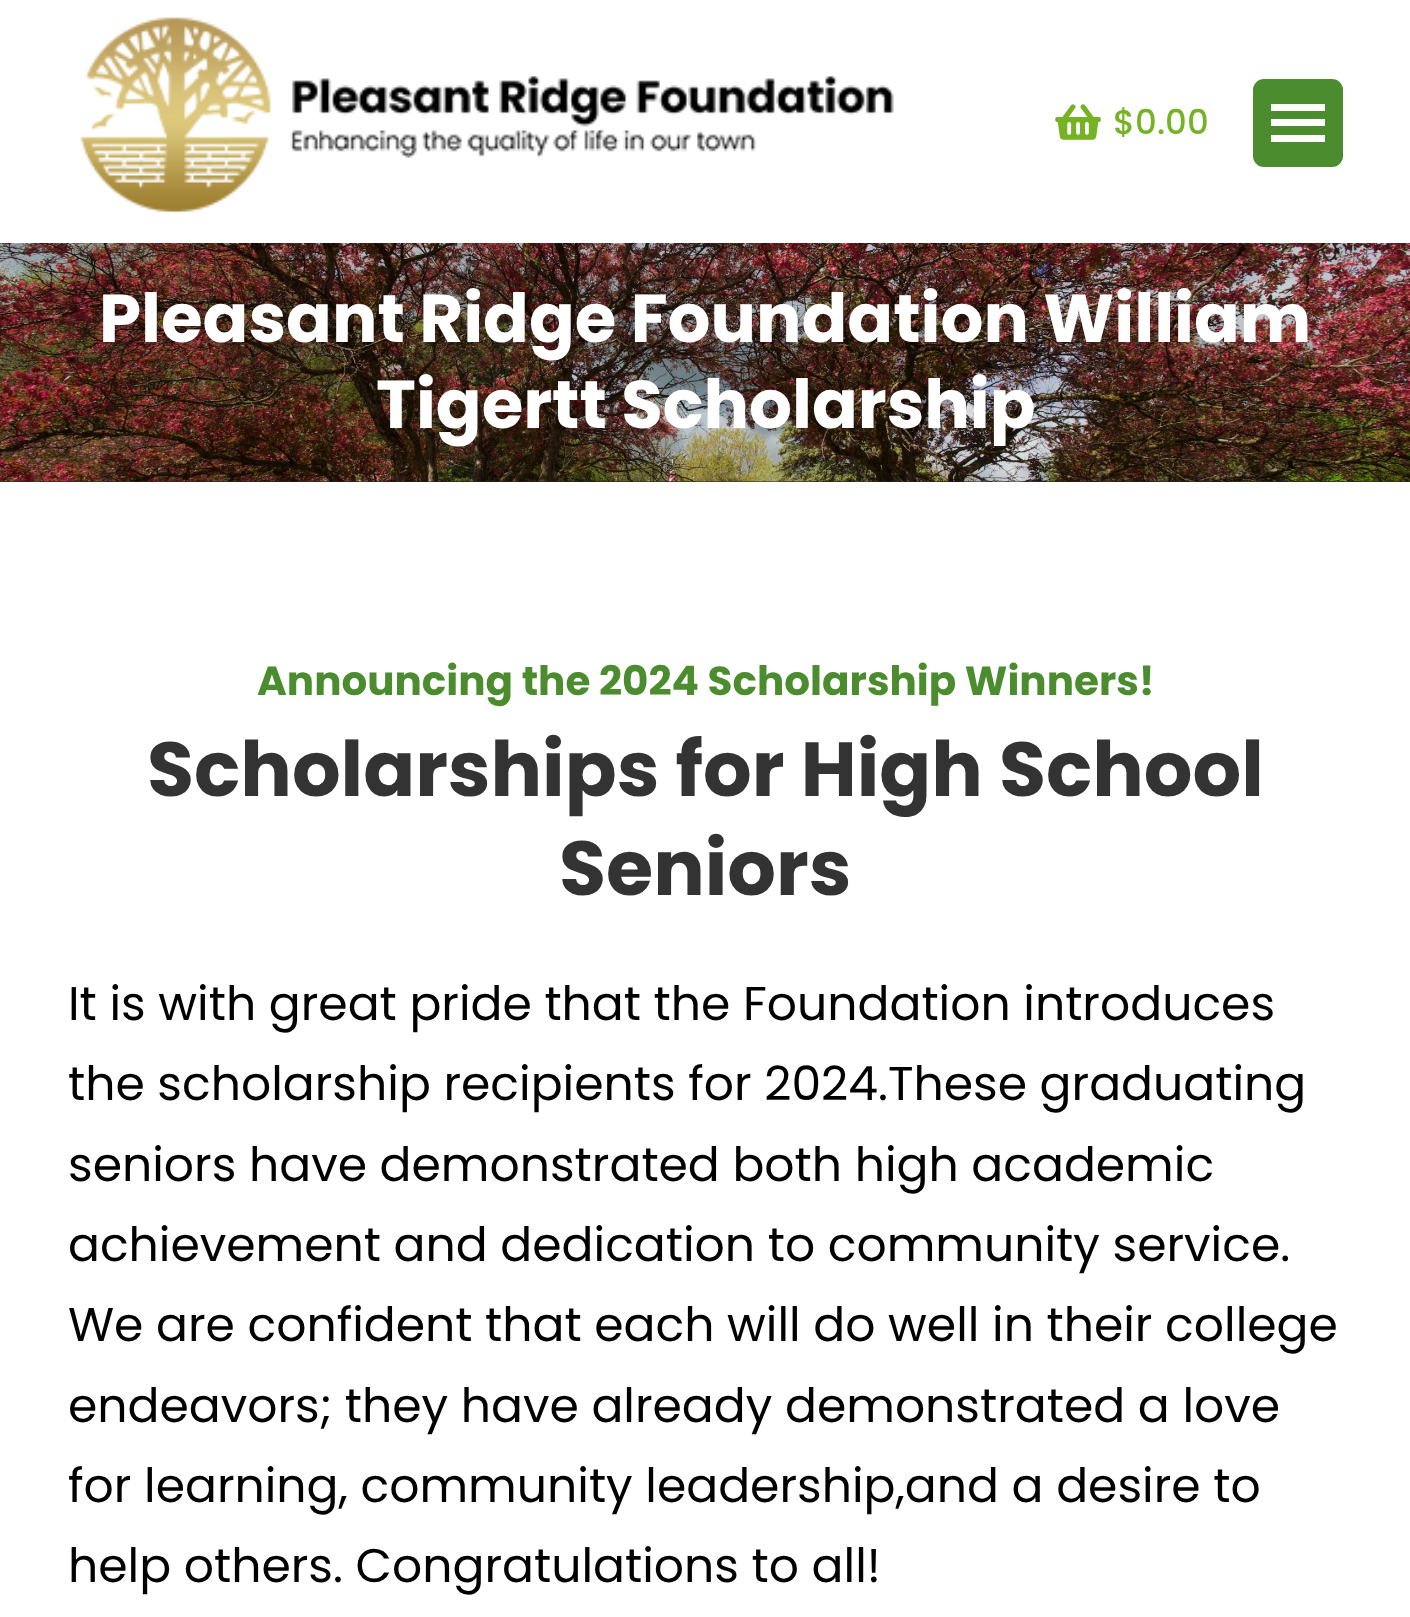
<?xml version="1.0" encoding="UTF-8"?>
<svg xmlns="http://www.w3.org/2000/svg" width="1410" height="1617">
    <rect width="100%" height="100%" fill="#FFFFFF"/>
    <image x="80" y="17" width="814" height="196" href="img_01.png"/>
    <image x="1055" y="104" width="46" height="36" href="img_02.png"/>
    <text x="1113" y="134" font-family="Poppins" font-size="34" font-weight="500" fill="#75B325">$0.00</text>
    <rect x="1253" y="79" width="90" height="88" rx="11" fill="#4B8D2E"/>
    <rect x="1271" y="104" width="54" height="7" fill="#FFFFFF"/>
    <rect x="1271" y="119" width="54" height="7" fill="#FFFFFF"/>
    <rect x="1271" y="135" width="54" height="7" fill="#FFFFFF"/>
    <rect x="0" y="481" width="1410" height="1" fill="#222222"/>
    <image x="0" y="243" width="1410" height="239" href="img_03.png"/>
    <text x="99" y="342" font-family="Poppins" font-size="67.5" font-weight="700" fill="#FFFFFF">Pleasant Ridge Foundation William</text>
    <text x="376" y="428" font-family="Poppins" font-size="67.5" font-weight="700" fill="#FFFFFF">Tigertt Scholarship</text>
    <text x="257" y="695" font-family="Poppins" font-size="40.5" font-weight="700" fill="#4B8D2E">Announcing the 2024 Scholarship Winners!</text>
    <text x="147" y="796" font-family="Poppins" font-size="76.5" font-weight="700" fill="#333333">Scholarships for High School</text>
    <text x="559" y="895" font-family="Poppins" font-size="76.5" font-weight="700" fill="#333333">Seniors</text>
    <text font-family="Poppins" font-size="47.25" fill="#000000">
        <tspan x="68" y="1020">It is with great pride that the Foundation introduces</tspan>
        <tspan x="68" y="1100">the scholarship recipients for 2024.These graduating</tspan>
        <tspan x="68" y="1181">seniors have demonstrated both high academic</tspan>
        <tspan x="68" y="1261">achievement and dedication to community service.</tspan>
        <tspan x="68" y="1341">We are confident that each will do well in their college</tspan>
        <tspan x="68" y="1422">endeavors; they have already demonstrated a love</tspan>
        <tspan x="68" y="1502">for learning, community leadership,and a desire to</tspan>
        <tspan x="68" y="1582">help others. Congratulations to all!</tspan>
    </text>
</svg>
